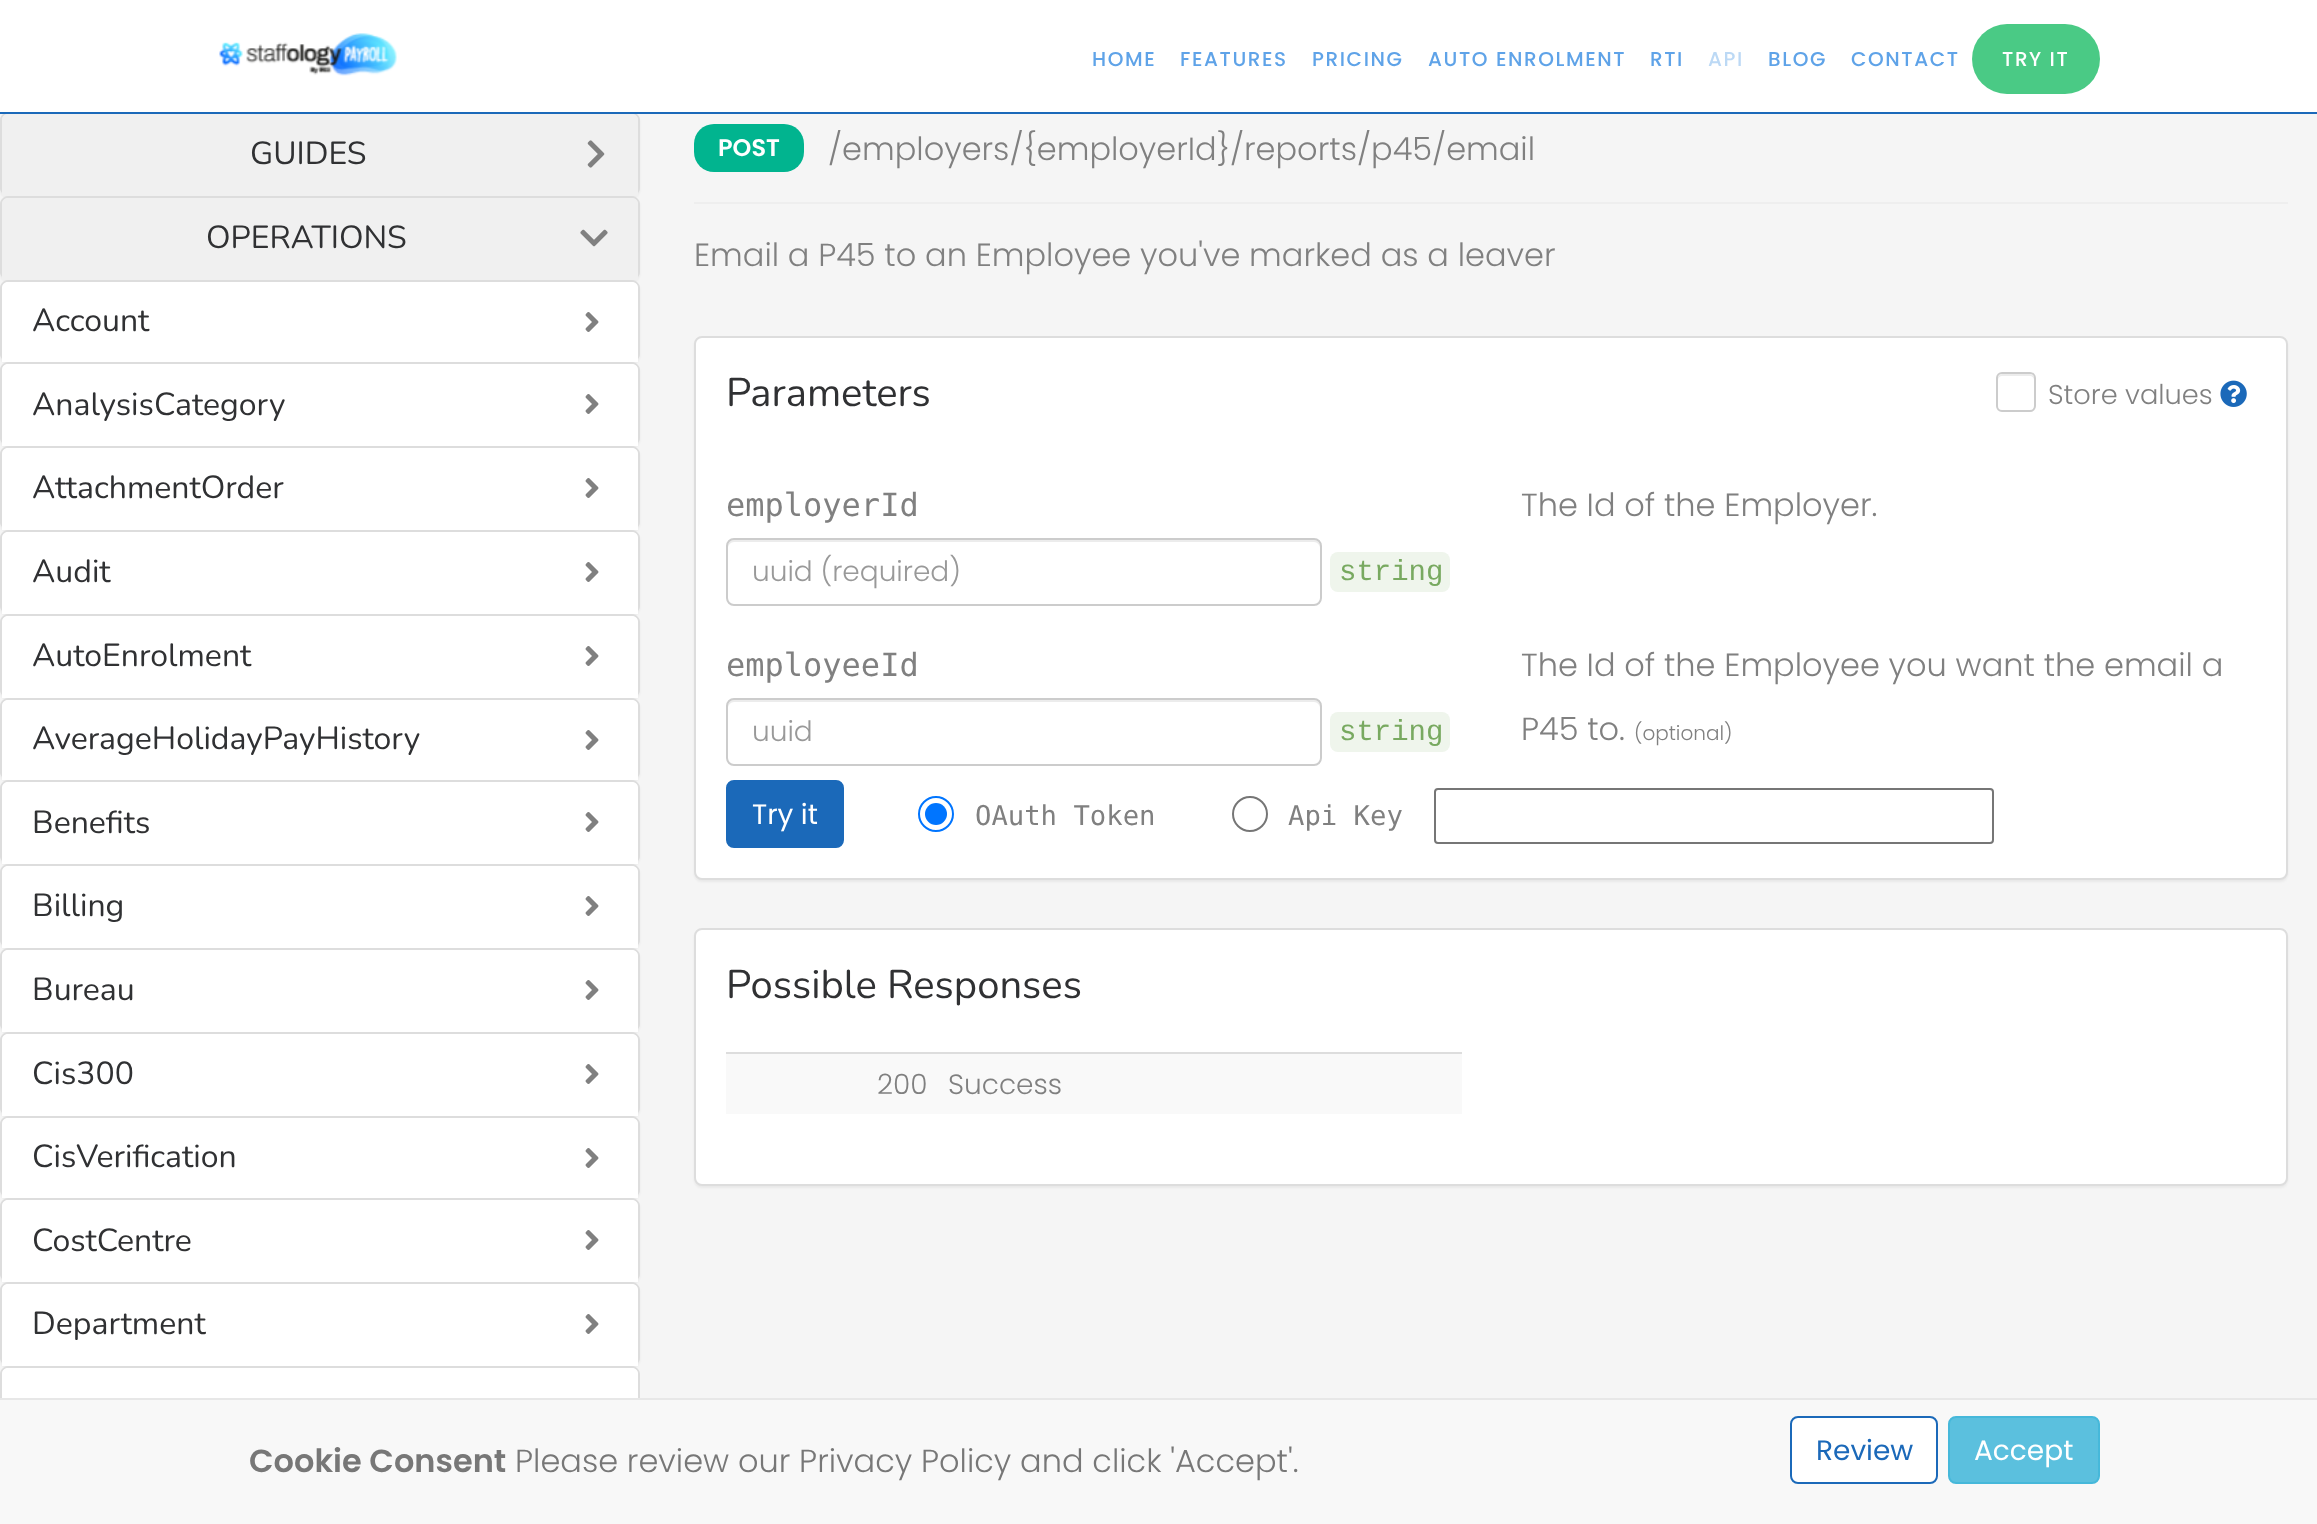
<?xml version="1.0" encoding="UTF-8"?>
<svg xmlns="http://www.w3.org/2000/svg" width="2317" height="1524">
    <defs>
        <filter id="blur1" x="-50%" y="-200%" width="200%" height="500%"><feGaussianBlur stdDeviation="1"/></filter>
    </defs>
    <rect width="100%" height="100%" fill="#F5F5F5"/>
    <rect x="0" y="114" width="640" height="84" rx="8" fill="#000000" fill-opacity="0.05" filter="url(#blur1)"/>
    <rect x="0" y="0" width="2317" height="112" fill="#FFFFFF" fill-opacity="0.95"/>
    <path d="M 8 112 H 632 C 636 112 640 116 640 120 V 188 C 640 192 636 196 632 196 H 8 C 4 196 0 192 0 188 V 120 C 0 116 4 112 8 112 Z M 8 114 H 632 C 635 114 638 117 638 120 V 188 C 638 192 635 196 632 196 H 8 C 5 196 2 192 2 188 V 120 C 2 117 5 114 8 114 Z" fill="#DDDDDD" fill-rule="evenodd"/>
    <rect x="0" y="112" width="2317" height="2" fill="#1B69B9"/>
    <image x="219" y="33" width="178" height="43" href="img_01.png"/>
    <text x="1092" y="66" font-family="Poppins" font-size="20" font-weight="500" letter-spacing="1.6" fill="#5FA3E8">HOME</text>
    <text x="1180" y="66" font-family="Poppins" font-size="20" font-weight="500" letter-spacing="1.6" fill="#5FA3E8">FEATURES</text>
    <text x="1312" y="66" font-family="Poppins" font-size="20" font-weight="500" letter-spacing="1.6" fill="#5FA3E8">PRICING</text>
    <text x="1428" y="66" font-family="Poppins" font-size="20" font-weight="500" letter-spacing="1.6" fill="#5FA3E8">AUTO ENROLMENT</text>
    <text x="1650" y="66" font-family="Poppins" font-size="20" font-weight="500" letter-spacing="1.6" fill="#5FA3E8">RTI</text>
    <text x="1708" y="66" font-family="Poppins" font-size="20" font-weight="500" letter-spacing="1.6" fill="#BCD9F5">API</text>
    <text x="1768" y="66" font-family="Poppins" font-size="20" font-weight="500" letter-spacing="1.6" fill="#5FA3E8">BLOG</text>
    <text x="1851" y="66" font-family="Poppins" font-size="20" font-weight="500" letter-spacing="1.6" fill="#5FA3E8">CONTACT</text>
    <rect x="1972" y="24" width="128" height="70" rx="35" fill="#4ACA85"/>
    <text x="2002" y="66" font-family="Poppins" font-size="20" font-weight="500" letter-spacing="1.6" fill="#FFFFFF">TRY IT</text>
    <path d="M 8 114 H 632 C 635.5 114 638 116.5 638 120 V 196 H 2 V 120 C 2 116.5 4.5 114 8 114 Z" fill="#F0F0F0"/>
    <text x="250" y="164" font-family="Nunito" font-size="32" fill="#303133">GUIDES</text>
    <image x="587" y="140" width="18" height="28" href="img_02.png"/>
    <rect x="0" y="198" width="640" height="84" rx="8" fill="#000000" fill-opacity="0.05" filter="url(#blur1)"/>
    <path d="M 8 196 H 632 C 636 196 640 200 640 204 V 272 C 640 276 636 280 632 280 H 8 C 4 280 0 276 0 272 V 204 C 0 200 4 196 8 196 Z M 8 198 H 632 C 635 198 638 201 638 204 V 272 C 638 276 635 280 632 280 H 8 C 5 280 2 276 2 272 V 204 C 2 201 5 198 8 198 Z" fill="#DDDDDD" fill-rule="evenodd"/>
    <path d="M 8 198 H 632 C 635.5 198 638 200.5 638 204 V 280 H 2 V 204 C 2 200.5 4.5 198 8 198 Z" fill="#F0F0F0"/>
    <text x="206" y="248" font-family="Nunito" font-size="32" fill="#303133">OPERATIONS</text>
    <image x="580" y="229" width="28" height="18" href="img_03.png"/>
    <rect x="0" y="282" width="640" height="82" rx="8" fill="#000000" fill-opacity="0.05" filter="url(#blur1)"/>
    <path d="M 8 280 H 632 C 636 280 640 284 640 288 V 354 C 640 358 636 362 632 362 H 8 C 4 362 0 358 0 354 V 288 C 0 284 4 280 8 280 Z M 8 282 H 632 C 635 282 638 285 638 288 V 354 C 638 358 635 362 632 362 H 8 C 5 362 2 358 2 354 V 288 C 2 285 5 282 8 282 Z" fill="#DDDDDD" fill-rule="evenodd"/>
    <path d="M 8 282 H 632 C 635.5 282 638 284.5 638 288 V 362 H 2 V 288 C 2 284.5 4.5 282 8 282 Z" fill="#FFFFFF"/>
    <text x="32" y="331" font-family="Nunito" font-size="32" fill="#303133">Account</text>
    <image x="585" y="312" width="14" height="20" href="img_04.png"/>
    <rect x="0" y="364" width="640" height="84" rx="8" fill="#000000" fill-opacity="0.05" filter="url(#blur1)"/>
    <path d="M 8 362 H 632 C 636 362 640 366 640 370 V 438 C 640 442 636 446 632 446 H 8 C 4 446 0 442 0 438 V 370 C 0 366 4 362 8 362 Z M 8 364 H 632 C 635 364 638 367 638 370 V 438 C 638 442 635 446 632 446 H 8 C 5 446 2 442 2 438 V 370 C 2 367 5 364 8 364 Z" fill="#DDDDDD" fill-rule="evenodd"/>
    <path d="M 8 364 H 632 C 635.5 364 638 366.5 638 370 V 446 H 2 V 370 C 2 366.5 4.5 364 8 364 Z" fill="#FFFFFF"/>
    <text x="32" y="415" font-family="Nunito" font-size="32" fill="#303133">AnalysisCategory</text>
    <image x="585" y="394" width="14" height="20" href="img_04.png"/>
    <rect x="0" y="448" width="640" height="84" rx="8" fill="#000000" fill-opacity="0.05" filter="url(#blur1)"/>
    <path d="M 8 446 H 632 C 636 446 640 450 640 454 V 522 C 640 526 636 530 632 530 H 8 C 4 530 0 526 0 522 V 454 C 0 450 4 446 8 446 Z M 8 448 H 632 C 635 448 638 451 638 454 V 522 C 638 526 635 530 632 530 H 8 C 5 530 2 526 2 522 V 454 C 2 451 5 448 8 448 Z" fill="#DDDDDD" fill-rule="evenodd"/>
    <path d="M 8 448 H 632 C 635.5 448 638 450.5 638 454 V 530 H 2 V 454 C 2 450.5 4.5 448 8 448 Z" fill="#FFFFFF"/>
    <text x="32" y="498" font-family="Nunito" font-size="32" fill="#303133">AttachmentOrder</text>
    <image x="585" y="478" width="14" height="20" href="img_04.png"/>
    <rect x="0" y="532" width="640" height="84" rx="8" fill="#000000" fill-opacity="0.05" filter="url(#blur1)"/>
    <path d="M 8 530 H 632 C 636 530 640 534 640 538 V 606 C 640 610 636 614 632 614 H 8 C 4 614 0 610 0 606 V 538 C 0 534 4 530 8 530 Z M 8 532 H 632 C 635 532 638 535 638 538 V 606 C 638 610 635 614 632 614 H 8 C 5 614 2 610 2 606 V 538 C 2 535 5 532 8 532 Z" fill="#DDDDDD" fill-rule="evenodd"/>
    <path d="M 8 532 H 632 C 635.5 532 638 534.5 638 538 V 614 H 2 V 538 C 2 534.5 4.5 532 8 532 Z" fill="#FFFFFF"/>
    <text x="32" y="582" font-family="Nunito" font-size="32" fill="#303133">Audit</text>
    <image x="585" y="562" width="14" height="20" href="img_04.png"/>
    <rect x="0" y="616" width="640" height="84" rx="8" fill="#000000" fill-opacity="0.05" filter="url(#blur1)"/>
    <path d="M 8 614 H 632 C 636 614 640 618 640 622 V 690 C 640 694 636 698 632 698 H 8 C 4 698 0 694 0 690 V 622 C 0 618 4 614 8 614 Z M 8 616 H 632 C 635 616 638 619 638 622 V 690 C 638 694 635 698 632 698 H 8 C 5 698 2 694 2 690 V 622 C 2 619 5 616 8 616 Z" fill="#DDDDDD" fill-rule="evenodd"/>
    <path d="M 8 616 H 632 C 635.5 616 638 618.5 638 622 V 698 H 2 V 622 C 2 618.5 4.5 616 8 616 Z" fill="#FFFFFF"/>
    <text x="32" y="666" font-family="Nunito" font-size="32" fill="#303133">AutoEnrolment</text>
    <image x="585" y="646" width="14" height="20" href="img_04.png"/>
    <rect x="0" y="700" width="640" height="82" rx="8" fill="#000000" fill-opacity="0.05" filter="url(#blur1)"/>
    <path d="M 8 698 H 632 C 636 698 640 702 640 706 V 772 C 640 776 636 780 632 780 H 8 C 4 780 0 776 0 772 V 706 C 0 702 4 698 8 698 Z M 8 700 H 632 C 635 700 638 703 638 706 V 772 C 638 776 635 780 632 780 H 8 C 5 780 2 776 2 772 V 706 C 2 703 5 700 8 700 Z" fill="#DDDDDD" fill-rule="evenodd"/>
    <path d="M 8 700 H 632 C 635.5 700 638 702.5 638 706 V 780 H 2 V 706 C 2 702.5 4.5 700 8 700 Z" fill="#FFFFFF"/>
    <text x="32" y="749" font-family="Nunito" font-size="32" fill="#303133">AverageHolidayPayHistory</text>
    <image x="585" y="730" width="14" height="20" href="img_04.png"/>
    <rect x="0" y="782" width="640" height="84" rx="8" fill="#000000" fill-opacity="0.05" filter="url(#blur1)"/>
    <path d="M 8 780 H 632 C 636 780 640 784 640 788 V 856 C 640 860 636 864 632 864 H 8 C 4 864 0 860 0 856 V 788 C 0 784 4 780 8 780 Z M 8 782 H 632 C 635 782 638 785 638 788 V 856 C 638 860 635 864 632 864 H 8 C 5 864 2 860 2 856 V 788 C 2 785 5 782 8 782 Z" fill="#DDDDDD" fill-rule="evenodd"/>
    <path d="M 8 782 H 632 C 635.5 782 638 784.5 638 788 V 864 H 2 V 788 C 2 784.5 4.5 782 8 782 Z" fill="#FFFFFF"/>
    <text x="32" y="833" font-family="Nunito" font-size="32" fill="#303133">Benefits</text>
    <image x="585" y="812" width="14" height="20" href="img_04.png"/>
    <rect x="0" y="866" width="640" height="84" rx="8" fill="#000000" fill-opacity="0.05" filter="url(#blur1)"/>
    <path d="M 8 864 H 632 C 636 864 640 868 640 872 V 940 C 640 944 636 948 632 948 H 8 C 4 948 0 944 0 940 V 872 C 0 868 4 864 8 864 Z M 8 866 H 632 C 635 866 638 869 638 872 V 940 C 638 944 635 948 632 948 H 8 C 5 948 2 944 2 940 V 872 C 2 869 5 866 8 866 Z" fill="#DDDDDD" fill-rule="evenodd"/>
    <path d="M 8 866 H 632 C 635.5 866 638 868.5 638 872 V 948 H 2 V 872 C 2 868.5 4.5 866 8 866 Z" fill="#FFFFFF"/>
    <text x="32" y="916" font-family="Nunito" font-size="32" fill="#303133">Billing</text>
    <image x="585" y="896" width="14" height="20" href="img_04.png"/>
    <rect x="0" y="950" width="640" height="84" rx="8" fill="#000000" fill-opacity="0.05" filter="url(#blur1)"/>
    <path d="M 8 948 H 632 C 636 948 640 952 640 956 V 1024 C 640 1028 636 1032 632 1032 H 8 C 4 1032 0 1028 0 1024 V 956 C 0 952 4 948 8 948 Z M 8 950 H 632 C 635 950 638 953 638 956 V 1024 C 638 1028 635 1032 632 1032 H 8 C 5 1032 2 1028 2 1024 V 956 C 2 953 5 950 8 950 Z" fill="#DDDDDD" fill-rule="evenodd"/>
    <path d="M 8 950 H 632 C 635.5 950 638 952.5 638 956 V 1032 H 2 V 956 C 2 952.5 4.5 950 8 950 Z" fill="#FFFFFF"/>
    <text x="32" y="1000" font-family="Nunito" font-size="32" fill="#303133">Bureau</text>
    <image x="585" y="980" width="14" height="20" href="img_04.png"/>
    <rect x="0" y="1034" width="640" height="84" rx="8" fill="#000000" fill-opacity="0.05" filter="url(#blur1)"/>
    <path d="M 8 1032 H 632 C 636 1032 640 1036 640 1040 V 1108 C 640 1112 636 1116 632 1116 H 8 C 4 1116 0 1112 0 1108 V 1040 C 0 1036 4 1032 8 1032 Z M 8 1034 H 632 C 635 1034 638 1037 638 1040 V 1108 C 638 1112 635 1116 632 1116 H 8 C 5 1116 2 1112 2 1108 V 1040 C 2 1037 5 1034 8 1034 Z" fill="#DDDDDD" fill-rule="evenodd"/>
    <path d="M 8 1034 H 632 C 635.5 1034 638 1036.5 638 1040 V 1116 H 2 V 1040 C 2 1036.5 4.5 1034 8 1034 Z" fill="#FFFFFF"/>
    <text x="32" y="1084" font-family="Nunito" font-size="32" fill="#303133">Cis300</text>
    <image x="585" y="1064" width="14" height="20" href="img_04.png"/>
    <rect x="0" y="1118" width="640" height="82" rx="8" fill="#000000" fill-opacity="0.05" filter="url(#blur1)"/>
    <path d="M 8 1116 H 632 C 636 1116 640 1120 640 1124 V 1190 C 640 1194 636 1198 632 1198 H 8 C 4 1198 0 1194 0 1190 V 1124 C 0 1120 4 1116 8 1116 Z M 8 1118 H 632 C 635 1118 638 1121 638 1124 V 1190 C 638 1194 635 1198 632 1198 H 8 C 5 1198 2 1194 2 1190 V 1124 C 2 1121 5 1118 8 1118 Z" fill="#DDDDDD" fill-rule="evenodd"/>
    <path d="M 8 1118 H 632 C 635.5 1118 638 1120.5 638 1124 V 1198 H 2 V 1124 C 2 1120.5 4.5 1118 8 1118 Z" fill="#FFFFFF"/>
    <text x="32" y="1167" font-family="Nunito" font-size="32" fill="#303133">CisVerification</text>
    <image x="585" y="1148" width="14" height="20" href="img_04.png"/>
    <rect x="0" y="1200" width="640" height="84" rx="8" fill="#000000" fill-opacity="0.05" filter="url(#blur1)"/>
    <path d="M 8 1198 H 632 C 636 1198 640 1202 640 1206 V 1274 C 640 1278 636 1282 632 1282 H 8 C 4 1282 0 1278 0 1274 V 1206 C 0 1202 4 1198 8 1198 Z M 8 1200 H 632 C 635 1200 638 1203 638 1206 V 1274 C 638 1278 635 1282 632 1282 H 8 C 5 1282 2 1278 2 1274 V 1206 C 2 1203 5 1200 8 1200 Z" fill="#DDDDDD" fill-rule="evenodd"/>
    <path d="M 8 1200 H 632 C 635.5 1200 638 1202.5 638 1206 V 1282 H 2 V 1206 C 2 1202.5 4.5 1200 8 1200 Z" fill="#FFFFFF"/>
    <text x="32" y="1251" font-family="Nunito" font-size="32" fill="#303133">CostCentre</text>
    <image x="585" y="1230" width="14" height="20" href="img_04.png"/>
    <rect x="0" y="1284" width="640" height="84" rx="8" fill="#000000" fill-opacity="0.05" filter="url(#blur1)"/>
    <path d="M 8 1282 H 632 C 636 1282 640 1286 640 1290 V 1358 C 640 1362 636 1366 632 1366 H 8 C 4 1366 0 1362 0 1358 V 1290 C 0 1286 4 1282 8 1282 Z M 8 1284 H 632 C 635 1284 638 1287 638 1290 V 1358 C 638 1362 635 1366 632 1366 H 8 C 5 1366 2 1362 2 1358 V 1290 C 2 1287 5 1284 8 1284 Z" fill="#DDDDDD" fill-rule="evenodd"/>
    <path d="M 8 1284 H 632 C 635.5 1284 638 1286.5 638 1290 V 1366 H 2 V 1290 C 2 1286.5 4.5 1284 8 1284 Z" fill="#FFFFFF"/>
    <text x="32" y="1334" font-family="Nunito" font-size="32" fill="#303133">Department</text>
    <image x="585" y="1314" width="14" height="20" href="img_04.png"/>
    <path d="M 8 1366 H 632 C 636 1366 640 1370 640 1374 V 1442 C 640 1446 636 1450 632 1450 H 8 C 4 1450 0 1446 0 1442 V 1374 C 0 1370 4 1366 8 1366 Z M 8 1368 H 632 C 635 1368 638 1371 638 1374 V 1442 C 638 1446 635 1450 632 1450 H 8 C 5 1450 2 1446 2 1442 V 1374 C 2 1371 5 1368 8 1368 Z" fill="#DDDDDD" fill-rule="evenodd"/>
    <path d="M 8 1368 H 632 C 635.5 1368 638 1370.5 638 1374 V 1450 H 2 V 1374 C 2 1370.5 4.5 1368 8 1368 Z" fill="#FFFFFF"/>
    <rect x="694" y="124" width="110" height="48" rx="20" fill="#01B48F"/>
    <text x="718" y="156" font-family="Poppins" font-size="24" font-weight="600" fill="#FFFFFF">POST</text>
    <text x="828" y="160" font-family="Poppins" font-size="32" font-weight="300" fill="#808080">/employers/{employerId}/reports/p45/email</text>
    <rect x="694" y="202" width="1594" height="2" fill="#EEEEEE"/>
    <text x="694" y="266" font-family="Poppins" font-size="32" font-weight="300" fill="#808080">Email a P45 to an Employee you've marked as a leaver</text>
    <rect x="694" y="338" width="1594" height="544" rx="8" fill="#000000" fill-opacity="0.05" filter="url(#blur1)"/>
    <rect x="695" y="337" width="1592" height="542" rx="7" fill="#FFFFFF" stroke="#DDDDDD" stroke-width="2"/>
    <text x="726" y="406" font-family="Nunito" font-size="40" fill="#303133">Parameters</text>
    <path d="M 2002 376 H 2030 C 2032 376 2034 378 2034 380 C 2034 373.5 2031.5 374 2025.5 374 H 2006.5 C 2000.5 374 1998 373.5 1998 380 C 1998 378 2000 376 2002 376 Z" fill="#ECECEC"/>
    <rect x="1997" y="373" width="38" height="38" rx="5" fill="none" stroke="#CCCCCC" stroke-width="2"/>
    <text x="2048" y="404" font-family="Poppins" font-size="27.25" font-weight="300" fill="#808080">Store values</text>
    <image x="2220" y="380" width="27" height="27" href="img_05.png"/>
    <text x="726" y="516" font-family="DejaVu Sans Mono" font-size="32" fill="#808080">employerId</text>
    <path d="M 734 542 H 1314 C 1317 542 1320 545 1320 548 V 546 C 1320 543 1317 540 1314 540 H 734 C 731 540 728 543 728 546 V 548 C 728 545 731 542 734 542 Z" fill="#ECECEC"/>
    <rect x="727" y="539" width="594" height="66" rx="7" fill="none" stroke="#CCCCCC" stroke-width="2"/>
    <text x="752" y="581" font-family="Poppins" font-size="28" font-weight="300" fill="#999999">uuid (required)</text>
    <rect x="1330" y="552" width="120" height="40" rx="8" fill="#EFF5EC"/>
    <text x="1339" y="580" font-family="Liberation Mono" font-size="29" fill="#78A960">string</text>
    <text x="1521" y="516" font-family="Poppins" font-size="32" font-weight="300" fill="#808080">The Id of the Employer.</text>
    <text x="726" y="676" font-family="DejaVu Sans Mono" font-size="32" fill="#808080">employeeId</text>
    <path d="M 734 702 H 1314 C 1317 702 1320 705 1320 708 V 706 C 1320 703 1317 700 1314 700 H 734 C 731 700 728 703 728 706 V 708 C 728 705 731 702 734 702 Z" fill="#ECECEC"/>
    <rect x="727" y="699" width="594" height="66" rx="7" fill="none" stroke="#CCCCCC" stroke-width="2"/>
    <text x="752" y="741" font-family="Poppins" font-size="28" font-weight="300" fill="#999999">uuid</text>
    <rect x="1330" y="712" width="120" height="40" rx="8" fill="#EFF5EC"/>
    <text x="1339" y="740" font-family="Liberation Mono" font-size="29" fill="#78A960">string</text>
    <text x="1521" y="676" font-family="Poppins" font-size="32" font-weight="300" fill="#808080">The Id of the Employee you want the email a</text>
    <text x="1521" y="740" font-family="Poppins" font-size="32" font-weight="300" fill="#808080">P45 to.</text>
    <text x="1634" y="740" font-family="Poppins" font-size="20" font-weight="300" fill="#808080">(optional)</text>
    <rect x="727" y="781" width="116" height="66" rx="7" fill="#1B69B9" stroke="#1B69B9" stroke-width="2"/>
    <text x="752" y="824" font-family="Poppins" font-size="28" fill="#FFFFFF">Try it</text>
    <circle cx="936" cy="814" r="17" fill="none" stroke="#0075FF" stroke-width="2"/>
    <circle cx="936" cy="814" r="11" fill="#0075FF"/>
    <text x="975" y="825" font-family="DejaVu Sans Mono" font-size="27.25" fill="#808080">OAuth Token</text>
    <circle cx="1250" cy="814" r="17" fill="none" stroke="#767676" stroke-width="2"/>
    <text x="1288" y="825" font-family="DejaVu Sans Mono" font-size="27.25" fill="#808080">Api Key</text>
    <rect x="1435" y="789" width="558" height="54" rx="3" fill="none" stroke="#767676" stroke-width="2"/>
    <rect x="694" y="930" width="1594" height="258" rx="8" fill="#000000" fill-opacity="0.05" filter="url(#blur1)"/>
    <rect x="695" y="929" width="1592" height="256" rx="7" fill="#FFFFFF" stroke="#DDDDDD" stroke-width="2"/>
    <text x="726" y="998" font-family="Nunito" font-size="40" fill="#303133">Possible Responses</text>
    <rect x="726" y="1054" width="736" height="60" fill="#F9F9F9"/>
    <rect x="726" y="1052" width="736" height="2" fill="#DDDDDD"/>
    <text x="877" y="1094" font-family="Poppins" font-size="28" font-weight="300" fill="#808080">200</text>
    <text x="948" y="1094" font-family="Poppins" font-size="28" font-weight="300" fill="#808080">Success</text>
    <rect x="0" y="1400" width="2317" height="124" fill="#F8F8F8"/>
    <rect x="0" y="1398" width="2317" height="2" fill="#E7E7E7"/>
    <text x="249" y="1472" font-family="Poppins" font-size="32" font-weight="600" fill="#777777">Cookie Consent</text>
    <text x="515" y="1472" font-family="Poppins" font-size="32" font-weight="300" fill="#777777">Please review our Privacy Policy and click 'Accept'.</text>
    <rect x="1791" y="1417" width="146" height="66" rx="7" fill="#FFFFFF" stroke="#1B69B9" stroke-width="2"/>
    <text x="1816" y="1460" font-family="Poppins" font-size="28" fill="#1B69B9">Review</text>
    <rect x="1949" y="1417" width="150" height="66" rx="7" fill="#5BC0DE" stroke="#46B8DA" stroke-width="2"/>
    <text x="1974" y="1460" font-family="Poppins" font-size="28" fill="#FFFFFF">Accept</text>
</svg>
